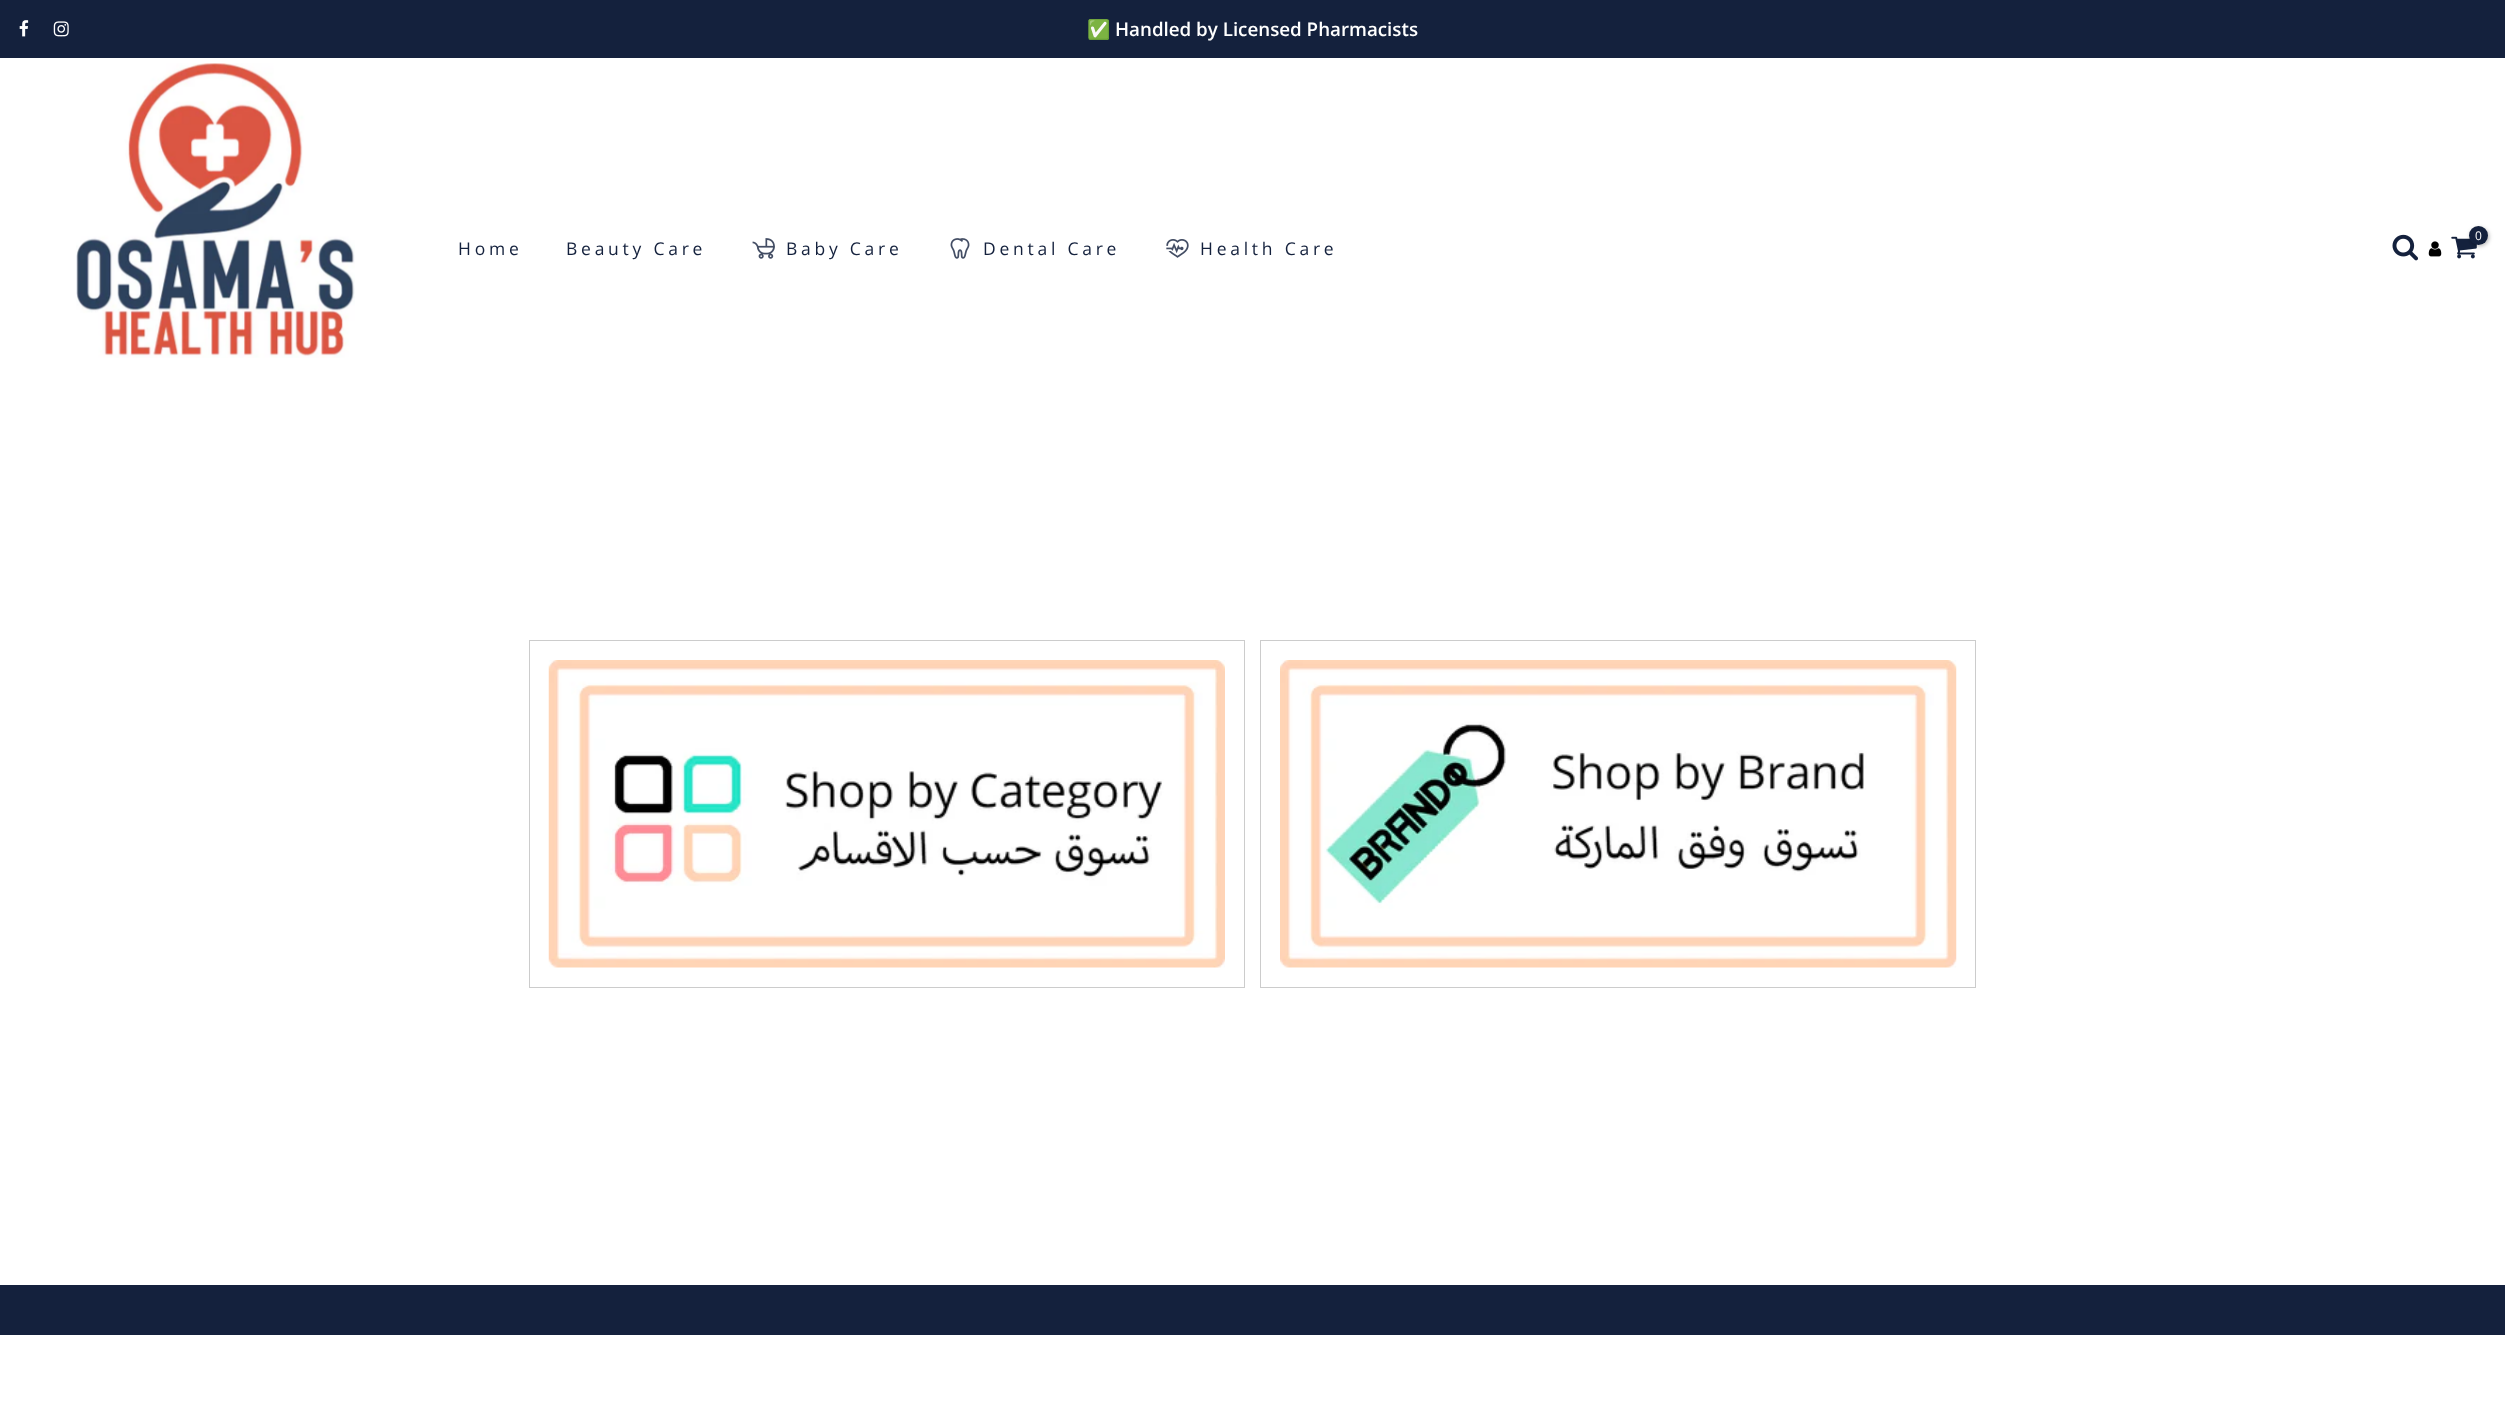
<?xml version="1.0" encoding="UTF-8"?>
<svg xmlns="http://www.w3.org/2000/svg" width="2505" height="1415">
    <defs>
        <filter id="blur1" x="-50%" y="-200%" width="200%" height="500%"><feGaussianBlur stdDeviation="2"/></filter>
    </defs>
    <rect width="100%" height="100%" fill="#FFFFFF"/>
    <rect x="0" y="0" width="2505" height="58" fill="#14213D"/>
    <image x="19" y="20" width="10" height="17" href="img_01.png"/>
    <image x="53" y="21" width="16" height="16" href="img_02.png"/>
    <text x="1087" y="36" font-family="Noto Color Emoji" font-size="18.75" fill="#FFFFFF">✅</text>
    <text x="1115" y="36" font-family="Open Sans" font-size="18.75" font-weight="600" fill="#FFFFFF">Handled by Licensed Pharmacists</text>
    <image x="76" y="63" width="279" height="295" href="img_03.png"/>
    <image x="2392" y="234" width="26" height="27" href="img_04.png"/>
    <image x="2428" y="241" width="14" height="16" href="img_05.png"/>
    <image x="2451" y="236" width="26" height="23" href="img_06.png"/>
    <rect x="2470" y="228" width="19" height="18" rx="9" fill="#000000" fill-opacity="0.3" filter="url(#blur1)"/>
    <circle cx="2478.5" cy="235.5" r="9.5" fill="#14213D"/>
    <text x="2475" y="240" font-family="Open Sans" font-size="12" fill="#FFFFFF">0</text>
    <text x="458" y="255" font-family="Open Sans" font-size="17.5" letter-spacing="3.75" fill="#14213D">Home</text>
    <text x="566" y="255" font-family="Open Sans" font-size="17.5" letter-spacing="3.75" fill="#14213D">Beauty Care</text>
    <image x="752" y="238" width="23" height="21" href="img_07.png"/>
    <text x="786" y="255" font-family="Open Sans" font-size="17.5" letter-spacing="3.75" fill="#14213D">Baby Care</text>
    <image x="950" y="238" width="20" height="21" href="img_08.png"/>
    <text x="983" y="255" font-family="Open Sans" font-size="17.5" letter-spacing="3.75" fill="#14213D">Dental Care</text>
    <image x="1166" y="239" width="23" height="19" href="img_09.png"/>
    <text x="1200" y="255" font-family="Open Sans" font-size="17.5" letter-spacing="3.75" fill="#14213D">Health Care</text>
    <rect x="529.5" y="640.5" width="715" height="347" fill="none" stroke="#CCCCCC"/>
    <image x="548" y="660" width="677" height="308" href="img_10.png"/>
    <rect x="1260.5" y="640.5" width="715" height="347" fill="none" stroke="#CCCCCC"/>
    <image x="1280" y="660" width="677" height="308" href="img_11.png"/>
    <rect x="0" y="1285" width="2505" height="50" fill="#14213D"/>
</svg>
